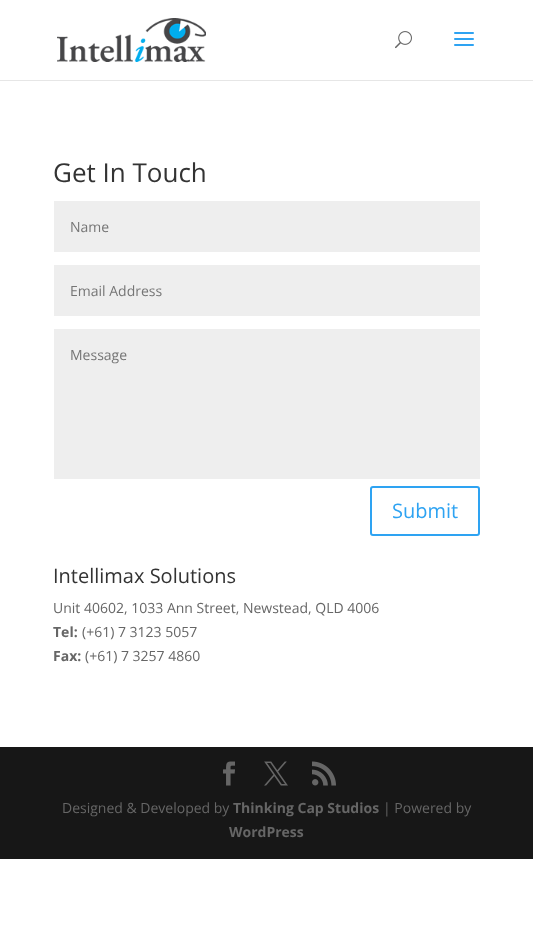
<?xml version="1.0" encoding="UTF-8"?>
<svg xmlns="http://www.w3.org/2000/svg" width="533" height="932">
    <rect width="100%" height="100%" fill="#FFFFFF"/>
    <rect x="0" y="80" width="533" height="1" fill="#E6E6E6"/>
    <image x="57" y="18" width="149" height="44" href="img_01.png"/>
    <image x="395" y="31" width="17" height="18" href="img_02.png"/>
    <image x="454" y="32" width="20" height="14" href="img_03.png"/>
    <text x="53" y="182" font-family="Open Sans" font-size="26" fill="#333333">Get In Touch</text>
    <rect x="54" y="201" width="426" height="51" fill="#EEEEEE"/>
    <text x="70" y="232" font-family="Open Sans" font-size="14" fill="#757575">Name</text>
    <rect x="54" y="265" width="426" height="51" fill="#EEEEEE"/>
    <text x="70" y="296" font-family="Open Sans" font-size="14" fill="#757575">Email Address</text>
    <rect x="54" y="329" width="426" height="150" fill="#EEEEEE"/>
    <text x="70" y="360" font-family="Open Sans" font-size="14" fill="#757575">Message</text>
    <rect x="371" y="487" width="108" height="48" rx="2" fill="none" stroke="#2EA3F2" stroke-width="2"/>
    <text x="392" y="518" font-family="Open Sans" font-size="20" fill="#2EA3F2">Submit</text>
    <text x="53" y="583" font-family="Open Sans" font-size="20" fill="#333333">Intellimax Solutions</text>
    <text x="53" y="613" font-family="Open Sans" font-size="14" fill="#666666">Unit 40602, 1033 Ann Street, Newstead, QLD 4006</text>
    <text x="53" y="637" font-family="Open Sans" font-size="14" font-weight="700" fill="#666666">Tel:</text>
    <text x="82" y="637" font-family="Open Sans" font-size="14" fill="#666666">(+61) 7 3123 5057</text>
    <text x="53" y="661" font-family="Open Sans" font-size="14" font-weight="700" fill="#666666">Fax:</text>
    <text x="85" y="661" font-family="Open Sans" font-size="14" fill="#666666">(+61) 7 3257 4860</text>
    <rect x="0" y="747" width="533" height="112" fill="#171717"/>
    <image x="223" y="761" width="12" height="25" href="img_04.png"/>
    <image x="264" y="761" width="24" height="25" href="img_05.png"/>
    <image x="312" y="761" width="24" height="25" href="img_06.png"/>
    <text x="62" y="813" font-family="Open Sans" font-size="14" fill="#666666">Designed &amp; Developed by</text>
    <text x="233" y="813" font-family="Open Sans" font-size="14" font-weight="700" fill="#666666">Thinking Cap Studios</text>
    <text x="383" y="813" font-family="Open Sans" font-size="14" fill="#666666">| Powered by</text>
    <text x="229" y="837" font-family="Open Sans" font-size="14" font-weight="700" fill="#666666">WordPress</text>
</svg>
